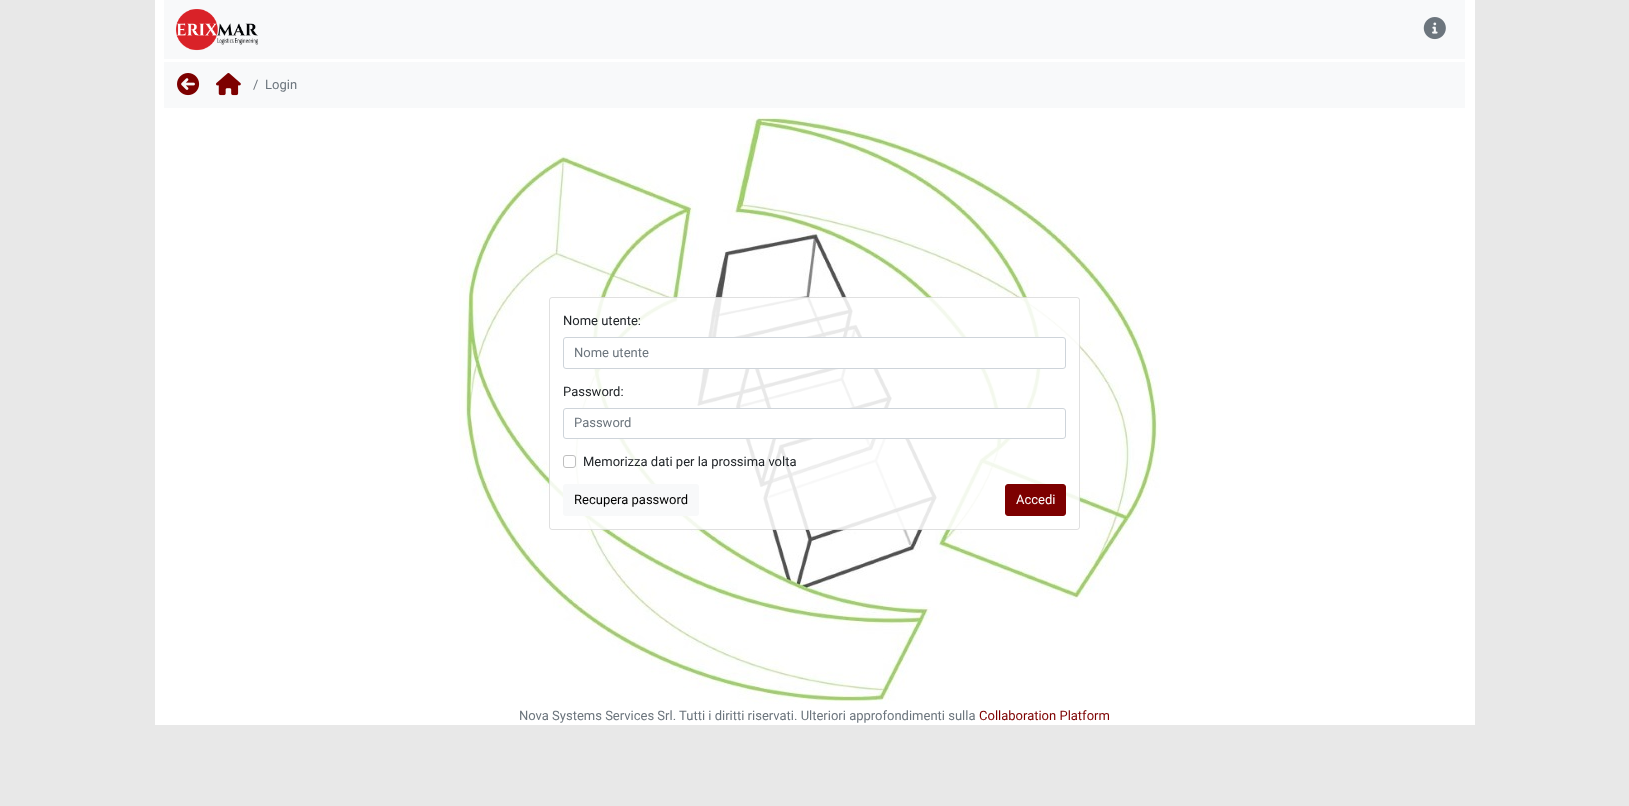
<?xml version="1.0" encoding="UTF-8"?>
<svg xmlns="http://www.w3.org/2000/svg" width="1629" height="806">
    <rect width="100%" height="100%" fill="#E8E8E8"/>
    <rect x="155" y="0" width="1320" height="725" fill="#FFFFFF"/>
    <image x="459" y="113" width="702" height="591" href="img_01.png"/>
    <rect x="164" y="0" width="1301" height="59" fill="#F8F9FA"/>
    <image x="175" y="9" width="84" height="42" href="img_02.png"/>
    <image x="1423" y="17" width="23" height="23" href="img_03.png"/>
    <rect x="164" y="62" width="1301" height="46" fill="#F8F9FA"/>
    <image x="177" y="73" width="23" height="23" href="img_04.png"/>
    <image x="216" y="73" width="25" height="23" href="img_05.png"/>
    <text x="253" y="89" font-family="Roboto" font-size="13" fill="#6C757D">/</text>
    <text x="265" y="89" font-family="Roboto" font-size="13" fill="#6C757D">Login</text>
    <rect x="549" y="297" width="531" height="233" rx="3" fill="#FFFFFF" fill-opacity="0.87"/>
    <rect x="549.5" y="297.5" width="530" height="232" rx="2.5" fill="none" stroke="#000000" stroke-opacity="0.12"/>
    <text x="563" y="325" font-family="Roboto" font-size="13" fill="#212529">Nome utente:</text>
    <rect x="563.5" y="337.5" width="502" height="31" rx="2.5" fill="#FFFFFF" stroke="#CED4DA"/>
    <text x="574" y="357" font-family="Roboto" font-size="13" fill="#6C757D">Nome utente</text>
    <text x="563" y="396" font-family="Roboto" font-size="13" fill="#212529">Password:</text>
    <rect x="563.5" y="408.5" width="502" height="30" rx="2.5" fill="#FFFFFF" stroke="#CED4DA"/>
    <text x="574" y="427" font-family="Roboto" font-size="13" fill="#6C757D">Password</text>
    <rect x="563.5" y="455.5" width="12" height="12" rx="2.5" fill="#FFFFFF" stroke="#BFBFBF"/>
    <text x="583" y="466" font-family="Roboto" font-size="13" fill="#212529">Memorizza dati per la prossima volta</text>
    <rect x="563" y="484" width="136" height="32" rx="3" fill="#F8F9FA"/>
    <text x="574" y="504" font-family="Roboto" font-size="13" fill="#000000">Recupera password</text>
    <rect x="1005.5" y="484.5" width="60" height="31" rx="2.5" fill="#7D0000" stroke="#7D0000"/>
    <text x="1016" y="504" font-family="Roboto" font-size="13" fill="#FFFFFF">Accedi</text>
    <text x="519" y="720" font-family="Roboto" font-size="13" fill="#6C757D">Nova Systems Services Srl. Tutti i diritti riservati. Ulteriori approfondimenti sulla</text>
    <text x="979" y="720" font-family="Roboto" font-size="13" fill="#7D0000">Collaboration Platform</text>
</svg>
